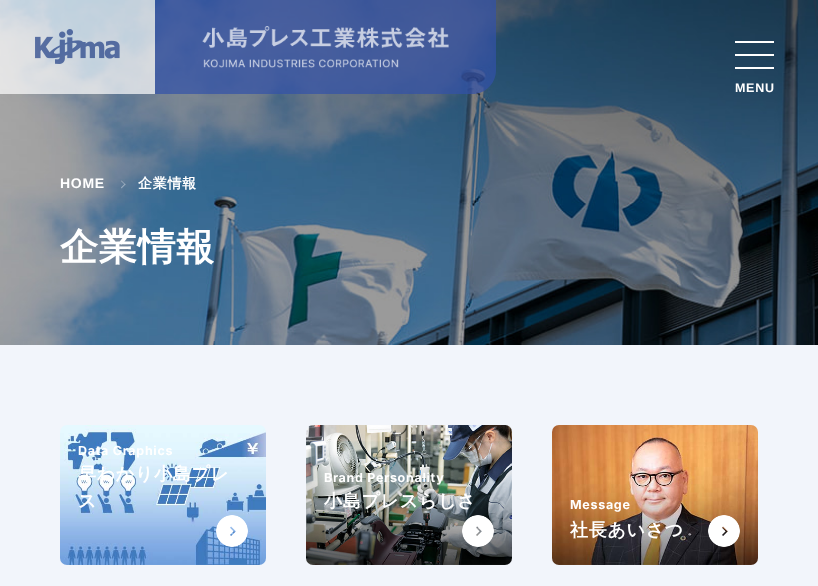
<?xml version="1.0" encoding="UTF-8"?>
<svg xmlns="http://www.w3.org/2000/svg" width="818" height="586">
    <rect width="100%" height="100%" fill="#FFFFFF"/>
    <image x="0" y="0" width="818" height="345" href="img_03.png"/>
    <rect x="0" y="0" width="155" height="94" fill="#FFFFFF" fill-opacity="0.7"/>
    <image x="35" y="29" width="85" height="35" href="img_01.png"/>
    <path d="M 155 0 H 496 V 70 C 496 83.5 485.5 94 472 94 H 155 Z" fill="#3251A9" fill-opacity="0.7"/>
    <image x="202" y="26" width="247" height="42" href="img_02.png"/>
    <rect x="735" y="54" width="39" height="2" fill="#FFFFFF"/>
    <rect x="735" y="41" width="39" height="2" fill="#FFFFFF"/>
    <rect x="735" y="67" width="39" height="2" fill="#FFFFFF"/>
    <text x="735" y="92" font-family="Liberation Sans" font-size="12.5" font-weight="700" letter-spacing="0.7" fill="#FFFFFF">MENU</text>
    <text x="60" y="188" font-family="Liberation Sans" font-size="14" font-weight="700" letter-spacing="0.7" fill="#FFFFFF">HOME</text>
    <path d="M 121 181 L 121.5 180.5 L 125.5 184.5 L 125 185 Z" fill="#FFFFFF" fill-opacity="0.4"/>
    <path d="M 121 187.5 L 125 183.5 L 125.5 184.5 L 121.5 188.5 Z" fill="#9CAEC0"/>
    <text x="138" y="188" font-family="WenQuanYi Zen Hei" font-size="14" font-weight="700" letter-spacing="0.7" fill="#FFFFFF">企業情報</text>
    <text x="60" y="260" font-family="WenQuanYi Zen Hei" font-size="38" font-weight="700" letter-spacing="0.7" fill="#FFFFFF">企業情報</text>
    <rect x="0" y="345" width="818" height="241" fill="#F2F5FB"/>
    <image x="60" y="425" width="206" height="140" href="img_04.png"/>
    <text x="78" y="455" font-family="Inter" font-size="12.5" font-weight="700" letter-spacing="0.7" fill="#FFFFFF">Data Graphics</text>
    <text font-family="WenQuanYi Zen Hei" font-size="18" font-weight="700" letter-spacing="0.7" fill="#FFFFFF">
        <tspan x="78" y="480">早わかり小島プレ</tspan>
        <tspan x="78" y="507">ス</tspan>
    </text>
    <image x="216" y="515" width="32" height="32" href="img_05.png"/>
    <image x="306" y="425" width="206" height="140" href="img_06.png"/>
    <text x="324" y="482" font-family="Inter" font-size="12.5" font-weight="700" letter-spacing="0.7" fill="#FFFFFF">Brand Personality</text>
    <text x="324" y="507" font-family="WenQuanYi Zen Hei" font-size="18" font-weight="700" letter-spacing="0.7" fill="#FFFFFF">小島プレスらしさ</text>
    <image x="462" y="515" width="32" height="32" href="img_07.png"/>
    <image x="552" y="425" width="206" height="140" href="img_08.png"/>
    <text x="570" y="509" font-family="Inter" font-size="12.5" font-weight="700" letter-spacing="0.7" fill="#FFFFFF">Message</text>
    <text x="570" y="536" font-family="WenQuanYi Zen Hei" font-size="18" font-weight="700" letter-spacing="0.7" fill="#FFFFFF">社長あいさつ</text>
    <image x="708" y="515" width="32" height="32" href="img_09.png"/>
</svg>
